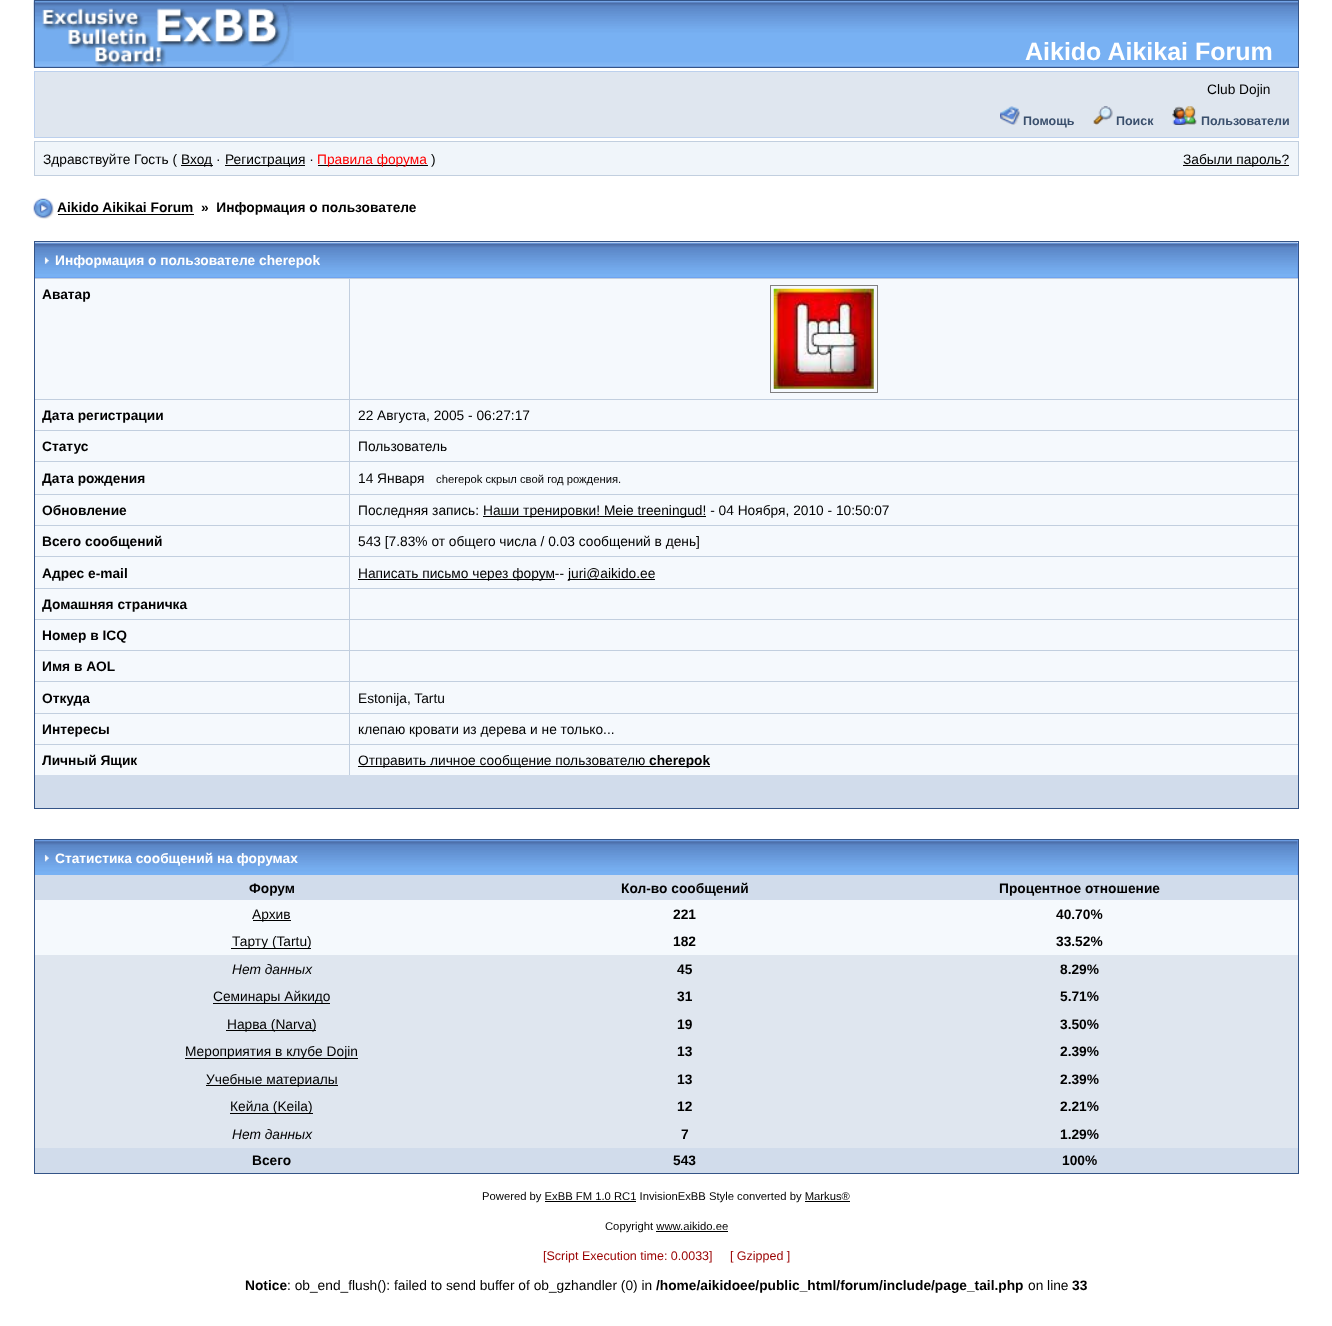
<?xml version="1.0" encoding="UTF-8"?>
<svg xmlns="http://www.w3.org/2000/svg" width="1332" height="1326">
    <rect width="100%" height="100%" fill="#FFFFFF"/>
    <image x="33" y="0" width="1265" height="68" href="img_01.png"/>
    <rect x="34.5" y="0.5" width="1264" height="67" fill="none" stroke="#345487"/>
    <image x="35" y="1" width="259" height="66" href="img_02.png"/>
    <text x="1025" y="60" font-family="Liberation Sans" font-size="25" font-weight="700" fill="#FFFFFF">Aikido Aikikai Forum</text>
    <rect x="34.5" y="71.5" width="1264" height="66" fill="#DFE6EF" stroke="#BCD0ED"/>
    <text x="1207" y="94" font-family="Liberation Sans" font-size="13.75" fill="#000000">Club Dojin</text>
    <image x="1000" y="106" width="20" height="19" href="img_03.png"/>
    <text x="1023" y="125" font-family="Liberation Sans" font-size="12.5" font-weight="700" fill="#3A4F6C">Помощь</text>
    <image x="1093" y="106" width="20" height="19" href="img_04.png"/>
    <text x="1116" y="125" font-family="Liberation Sans" font-size="12.5" font-weight="700" fill="#3A4F6C">Поиск</text>
    <image x="1172" y="106" width="25" height="19" href="img_05.png"/>
    <text x="1201" y="125" font-family="Liberation Sans" font-size="12.5" font-weight="700" fill="#3A4F6C">Пользователи</text>
    <rect x="34.5" y="141.5" width="1264" height="34" fill="#F0F5FA" stroke="#C2CFDF"/>
    <text x="43" y="164" font-family="Liberation Sans" font-size="13.75" fill="#000000">Здравствуйте Гость (</text>
    <rect x="181" y="165" width="32" height="1" fill="#000000"/>
    <text x="181" y="164" font-family="Liberation Sans" font-size="13.75" fill="#000000">Вход ·</text>
    <rect x="225" y="165" width="80" height="1" fill="#000000"/>
    <text x="225" y="164" font-family="Liberation Sans" font-size="13.75" fill="#000000">Регистрация ·</text>
    <rect x="318" y="165" width="110" height="1" fill="#000000"/>
    <text x="317" y="164" font-family="Liberation Sans" font-size="13.75" fill="#FF0000">Правила форума</text>
    <text x="431" y="164" font-family="Liberation Sans" font-size="13.75" fill="#000000">)</text>
    <rect x="1183" y="165" width="106" height="1" fill="#000000"/>
    <text x="1183" y="164" font-family="Liberation Sans" font-size="13.75" fill="#000000">Забыли пароль?</text>
    <image x="33" y="198" width="21" height="21" href="img_06.png"/>
    <text x="57" y="212" font-family="Liberation Sans" font-size="13.75" font-weight="700" fill="#000000">Aikido Aikikai Forum</text>
    <rect x="58" y="214" width="136" height="1" fill="#000000"/>
    <text x="201" y="212" font-family="Liberation Sans" font-size="13.75" font-weight="700" fill="#000000" xml:space="preserve">»  Информация о пользователе</text>
    <rect x="34.5" y="241.5" width="1264" height="567" fill="none" stroke="#345487"/>
    <rect x="35" y="243" width="1263" height="35" fill="#6495ED"/>
    <image x="35" y="242" width="1263" height="36" href="img_07.png"/>
    <image x="44" y="257" width="5" height="7" href="img_08.png"/>
    <text x="55" y="265" font-family="Liberation Sans" font-size="13.75" font-weight="700" fill="#FFFFFF">Информация о пользователе cherepok</text>
    <rect x="35" y="279" width="314" height="120" fill="#F5F9FD"/>
    <rect x="35" y="278" width="1263" height="1" fill="#C2CFDF"/>
    <rect x="349" y="278" width="1" height="121" fill="#C2CFDF"/>
    <text x="42" y="299" font-family="Liberation Sans" font-size="13.75" font-weight="700" fill="#000000">Аватар</text>
    <rect x="350" y="279" width="948" height="120" fill="#F5F9FD"/>
    <rect x="770.5" y="285.5" width="107" height="107" fill="none" stroke="#808080"/>
    <image x="773" y="288" width="101" height="101" href="img_09.png"/>
    <rect x="35" y="400" width="314" height="30" fill="#F5F9FD"/>
    <rect x="35" y="399" width="1263" height="1" fill="#C2CFDF"/>
    <rect x="349" y="399" width="1" height="31" fill="#C2CFDF"/>
    <text x="42" y="420" font-family="Liberation Sans" font-size="13.75" font-weight="700" fill="#000000">Дата регистрации</text>
    <rect x="350" y="400" width="948" height="30" fill="#F5F9FD"/>
    <text x="358" y="420" font-family="Liberation Sans" font-size="13.75" fill="#000000">22 Августа, 2005 - 06:27:17</text>
    <rect x="35" y="431" width="314" height="30" fill="#F5F9FD"/>
    <rect x="35" y="430" width="1263" height="1" fill="#C2CFDF"/>
    <rect x="349" y="430" width="1" height="31" fill="#C2CFDF"/>
    <text x="42" y="451" font-family="Liberation Sans" font-size="13.75" font-weight="700" fill="#000000">Статус</text>
    <rect x="350" y="431" width="948" height="30" fill="#F5F9FD"/>
    <text x="358" y="451" font-family="Liberation Sans" font-size="13.75" fill="#000000">Пользователь</text>
    <rect x="35" y="462" width="314" height="32" fill="#F5F9FD"/>
    <rect x="35" y="461" width="1263" height="1" fill="#C2CFDF"/>
    <rect x="349" y="461" width="1" height="33" fill="#C2CFDF"/>
    <text x="42" y="483" font-family="Liberation Sans" font-size="13.75" font-weight="700" fill="#000000">Дата рождения</text>
    <rect x="350" y="462" width="948" height="32" fill="#F5F9FD"/>
    <text x="358" y="483" font-family="Liberation Sans" font-size="13.75" fill="#000000">14 Января</text>
    <text x="436" y="483" font-family="Liberation Sans" font-size="11.25" fill="#000000">cherepok скрыл свой год рождения.</text>
    <rect x="35" y="495" width="314" height="30" fill="#F5F9FD"/>
    <rect x="35" y="494" width="1263" height="1" fill="#C2CFDF"/>
    <rect x="349" y="494" width="1" height="31" fill="#C2CFDF"/>
    <text x="42" y="515" font-family="Liberation Sans" font-size="13.75" font-weight="700" fill="#000000">Обновление</text>
    <rect x="350" y="495" width="948" height="30" fill="#F5F9FD"/>
    <text x="358" y="515" font-family="Liberation Sans" font-size="13.75" fill="#000000">Последняя запись:</text>
    <rect x="483" y="516" width="223" height="1" fill="#000000"/>
    <text x="483" y="515" font-family="Liberation Sans" font-size="13.75" fill="#000000">Наши тренировки! Meie treeningud! - 04 Ноября, 2010 - 10:50:07</text>
    <rect x="35" y="526" width="314" height="30" fill="#F5F9FD"/>
    <rect x="35" y="525" width="1263" height="1" fill="#C2CFDF"/>
    <rect x="349" y="525" width="1" height="31" fill="#C2CFDF"/>
    <text x="42" y="546" font-family="Liberation Sans" font-size="13.75" font-weight="700" fill="#000000">Всего сообщений</text>
    <rect x="350" y="526" width="948" height="30" fill="#F5F9FD"/>
    <text x="358" y="546" font-family="Liberation Sans" font-size="13.75" fill="#000000">543 [7.83% от общего числа / 0.03 сообщений в день]</text>
    <rect x="35" y="557" width="314" height="31" fill="#F5F9FD"/>
    <rect x="35" y="556" width="1263" height="1" fill="#C2CFDF"/>
    <rect x="349" y="556" width="1" height="32" fill="#C2CFDF"/>
    <text x="42" y="578" font-family="Liberation Sans" font-size="13.75" font-weight="700" fill="#000000">Адрес e-mail</text>
    <rect x="350" y="557" width="948" height="31" fill="#F5F9FD"/>
    <rect x="358" y="579" width="197" height="1" fill="#000000"/>
    <text x="358" y="578" font-family="Liberation Sans" font-size="13.75" fill="#000000">Написать письмо через форум--</text>
    <rect x="568" y="579" width="87" height="1" fill="#000000"/>
    <text x="568" y="578" font-family="Liberation Sans" font-size="13.75" fill="#000000">juri@aikido.ee</text>
    <rect x="35" y="589" width="314" height="30" fill="#F5F9FD"/>
    <rect x="35" y="588" width="1263" height="1" fill="#C2CFDF"/>
    <rect x="349" y="588" width="1" height="31" fill="#C2CFDF"/>
    <text x="42" y="609" font-family="Liberation Sans" font-size="13.75" font-weight="700" fill="#000000">Домашняя страничка</text>
    <rect x="350" y="589" width="948" height="30" fill="#F5F9FD"/>
    <rect x="35" y="620" width="314" height="30" fill="#F5F9FD"/>
    <rect x="35" y="619" width="1263" height="1" fill="#C2CFDF"/>
    <rect x="349" y="619" width="1" height="31" fill="#C2CFDF"/>
    <text x="42" y="640" font-family="Liberation Sans" font-size="13.75" font-weight="700" fill="#000000">Номер в ICQ</text>
    <rect x="350" y="620" width="948" height="30" fill="#F5F9FD"/>
    <rect x="35" y="651" width="314" height="30" fill="#F5F9FD"/>
    <rect x="35" y="650" width="1263" height="1" fill="#C2CFDF"/>
    <rect x="349" y="650" width="1" height="31" fill="#C2CFDF"/>
    <text x="42" y="671" font-family="Liberation Sans" font-size="13.75" font-weight="700" fill="#000000">Имя в AOL</text>
    <rect x="350" y="651" width="948" height="30" fill="#F5F9FD"/>
    <rect x="35" y="682" width="314" height="31" fill="#F5F9FD"/>
    <rect x="35" y="681" width="1263" height="1" fill="#C2CFDF"/>
    <rect x="349" y="681" width="1" height="32" fill="#C2CFDF"/>
    <text x="42" y="703" font-family="Liberation Sans" font-size="13.75" font-weight="700" fill="#000000">Откуда</text>
    <rect x="350" y="682" width="948" height="31" fill="#F5F9FD"/>
    <text x="358" y="703" font-family="Liberation Sans" font-size="13.75" fill="#000000">Estonija, Tartu</text>
    <rect x="35" y="714" width="314" height="30" fill="#F5F9FD"/>
    <rect x="35" y="713" width="1263" height="1" fill="#C2CFDF"/>
    <rect x="349" y="713" width="1" height="31" fill="#C2CFDF"/>
    <text x="42" y="734" font-family="Liberation Sans" font-size="13.75" font-weight="700" fill="#000000">Интересы</text>
    <rect x="350" y="714" width="948" height="30" fill="#F5F9FD"/>
    <text x="358" y="734" font-family="Liberation Sans" font-size="13.75" fill="#000000">клепаю кровати из дерева и не только...</text>
    <rect x="35" y="745" width="314" height="30" fill="#F5F9FD"/>
    <rect x="35" y="744" width="1263" height="1" fill="#C2CFDF"/>
    <rect x="349" y="744" width="1" height="31" fill="#C2CFDF"/>
    <text x="42" y="765" font-family="Liberation Sans" font-size="13.75" font-weight="700" fill="#000000">Личный Ящик</text>
    <rect x="350" y="745" width="948" height="30" fill="#F5F9FD"/>
    <rect x="358" y="766" width="352" height="1" fill="#000000"/>
    <text x="358" y="765" font-family="Liberation Sans" font-size="13.75" fill="#000000">Отправить личное сообщение пользователю</text>
    <text x="649" y="765" font-family="Liberation Sans" font-size="13.75" font-weight="700" fill="#000000">cherepok</text>
    <rect x="35" y="775" width="1263" height="33" fill="#D1DCEB"/>
    <rect x="34.5" y="839.5" width="1264" height="334" fill="none" stroke="#345487"/>
    <rect x="1297" y="840" width="1" height="35" fill="#6495ED"/>
    <image x="35" y="840" width="1263" height="35" href="img_10.png"/>
    <image x="44" y="854" width="5" height="8" href="img_11.png"/>
    <text x="55" y="863" font-family="Liberation Sans" font-size="13.75" font-weight="700" fill="#FFFFFF">Статистика сообщений на форумах</text>
    <rect x="35" y="875" width="1263" height="25" fill="#D1DCEB"/>
    <text x="249" y="893" font-family="Liberation Sans" font-size="13.75" font-weight="700" fill="#000000">Форум</text>
    <text x="621" y="893" font-family="Liberation Sans" font-size="13.75" font-weight="700" fill="#000000">Кол-во сообщений</text>
    <text x="999" y="893" font-family="Liberation Sans" font-size="13.75" font-weight="700" fill="#000000">Процентное отношение</text>
    <rect x="35" y="900" width="1263" height="28" fill="#F5F9FD"/>
    <rect x="253" y="920" width="38" height="1" fill="#000000"/>
    <text x="252" y="919" font-family="Liberation Sans" font-size="13.75" fill="#000000">Архив</text>
    <text x="673" y="919" font-family="Liberation Sans" font-size="13.75" font-weight="700" fill="#000000">221</text>
    <text x="1056" y="919" font-family="Liberation Sans" font-size="13.75" font-weight="700" fill="#000000">40.70%</text>
    <rect x="35" y="928" width="1263" height="27" fill="#F5F9FD"/>
    <rect x="231" y="948" width="80" height="1" fill="#000000"/>
    <text x="232" y="946" font-family="Liberation Sans" font-size="13.75" fill="#000000">Тарту (Tartu)</text>
    <text x="673" y="946" font-family="Liberation Sans" font-size="13.75" font-weight="700" fill="#000000">182</text>
    <text x="1056" y="946" font-family="Liberation Sans" font-size="13.75" font-weight="700" fill="#000000">33.52%</text>
    <rect x="35" y="955" width="1263" height="28" fill="#DFE6EF"/>
    <text x="232" y="974" font-family="Liberation Sans" font-size="13.75" font-style="italic" fill="#000000">Нет данных</text>
    <text x="677" y="974" font-family="Liberation Sans" font-size="13.75" font-weight="700" fill="#000000">45</text>
    <text x="1060" y="974" font-family="Liberation Sans" font-size="13.75" font-weight="700" fill="#000000">8.29%</text>
    <rect x="35" y="983" width="1263" height="27" fill="#DFE6EF"/>
    <rect x="213" y="1003" width="117" height="1" fill="#000000"/>
    <text x="213" y="1001" font-family="Liberation Sans" font-size="13.75" fill="#000000">Семинары Айкидо</text>
    <text x="677" y="1001" font-family="Liberation Sans" font-size="13.75" font-weight="700" fill="#000000">31</text>
    <text x="1060" y="1001" font-family="Liberation Sans" font-size="13.75" font-weight="700" fill="#000000">5.71%</text>
    <rect x="35" y="1010" width="1263" height="28" fill="#DFE6EF"/>
    <rect x="226" y="1030" width="90" height="1" fill="#000000"/>
    <text x="227" y="1029" font-family="Liberation Sans" font-size="13.75" fill="#000000">Нарва (Narva)</text>
    <text x="677" y="1029" font-family="Liberation Sans" font-size="13.75" font-weight="700" fill="#000000">19</text>
    <text x="1060" y="1029" font-family="Liberation Sans" font-size="13.75" font-weight="700" fill="#000000">3.50%</text>
    <rect x="35" y="1038" width="1263" height="27" fill="#DFE6EF"/>
    <rect x="185" y="1058" width="173" height="1" fill="#000000"/>
    <text x="185" y="1056" font-family="Liberation Sans" font-size="13.75" fill="#000000">Мероприятия в клубе Dojin</text>
    <text x="677" y="1056" font-family="Liberation Sans" font-size="13.75" font-weight="700" fill="#000000">13</text>
    <text x="1060" y="1056" font-family="Liberation Sans" font-size="13.75" font-weight="700" fill="#000000">2.39%</text>
    <rect x="35" y="1065" width="1263" height="28" fill="#DFE6EF"/>
    <rect x="206" y="1085" width="132" height="1" fill="#000000"/>
    <text x="206" y="1084" font-family="Liberation Sans" font-size="13.75" fill="#000000">Учебные материалы</text>
    <text x="677" y="1084" font-family="Liberation Sans" font-size="13.75" font-weight="700" fill="#000000">13</text>
    <text x="1060" y="1084" font-family="Liberation Sans" font-size="13.75" font-weight="700" fill="#000000">2.39%</text>
    <rect x="35" y="1093" width="1263" height="27" fill="#DFE6EF"/>
    <rect x="230" y="1113" width="83" height="1" fill="#000000"/>
    <text x="230" y="1111" font-family="Liberation Sans" font-size="13.75" fill="#000000">Кейла (Keila)</text>
    <text x="677" y="1111" font-family="Liberation Sans" font-size="13.75" font-weight="700" fill="#000000">12</text>
    <text x="1060" y="1111" font-family="Liberation Sans" font-size="13.75" font-weight="700" fill="#000000">2.21%</text>
    <rect x="35" y="1120" width="1263" height="28" fill="#DFE6EF"/>
    <text x="232" y="1139" font-family="Liberation Sans" font-size="13.75" font-style="italic" fill="#000000">Нет данных</text>
    <text x="681" y="1139" font-family="Liberation Sans" font-size="13.75" font-weight="700" fill="#000000">7</text>
    <text x="1060" y="1139" font-family="Liberation Sans" font-size="13.75" font-weight="700" fill="#000000">1.29%</text>
    <rect x="35" y="1148" width="1263" height="25" fill="#D1DCEB"/>
    <text x="252" y="1165" font-family="Liberation Sans" font-size="13.75" font-weight="700" fill="#000000">Всего</text>
    <text x="673" y="1165" font-family="Liberation Sans" font-size="13.75" font-weight="700" fill="#000000">543</text>
    <text x="1062" y="1165" font-family="Liberation Sans" font-size="13.75" font-weight="700" fill="#000000">100%</text>
    <text x="482" y="1200" font-family="Liberation Sans" font-size="11.25" fill="#000000">Powered by ExBB FM 1.0 RC1 InvisionExBB Style converted by Markus®</text>
    <rect x="545" y="1201" width="91" height="1" fill="#000000"/>
    <rect x="805" y="1201" width="45" height="1" fill="#000000"/>
    <text x="605" y="1230" font-family="Liberation Sans" font-size="11.25" fill="#000000">Copyright www.aikido.ee</text>
    <rect x="656" y="1231" width="72" height="1" fill="#000000"/>
    <text x="543" y="1260" font-family="Liberation Sans" font-size="12.5" fill="#990000" xml:space="preserve">[Script Execution time: 0.0033]     [ Gzipped ]</text>
    <text x="245" y="1290" font-family="Liberation Sans" font-size="13.75" font-weight="700" fill="#000000">Notice</text>
    <text x="287" y="1290" font-family="Liberation Sans" font-size="13.75" fill="#000000">: ob_end_flush(): failed to send buffer of ob_gzhandler (0) in</text>
    <text x="656" y="1290" font-family="Liberation Sans" font-size="13.75" font-weight="700" fill="#000000">/home/aikidoee/public_html/forum/include/page_tail.php</text>
    <text x="1028" y="1290" font-family="Liberation Sans" font-size="13.75" fill="#000000">on line</text>
    <text x="1072" y="1290" font-family="Liberation Sans" font-size="13.75" font-weight="700" fill="#000000">33</text>
</svg>
